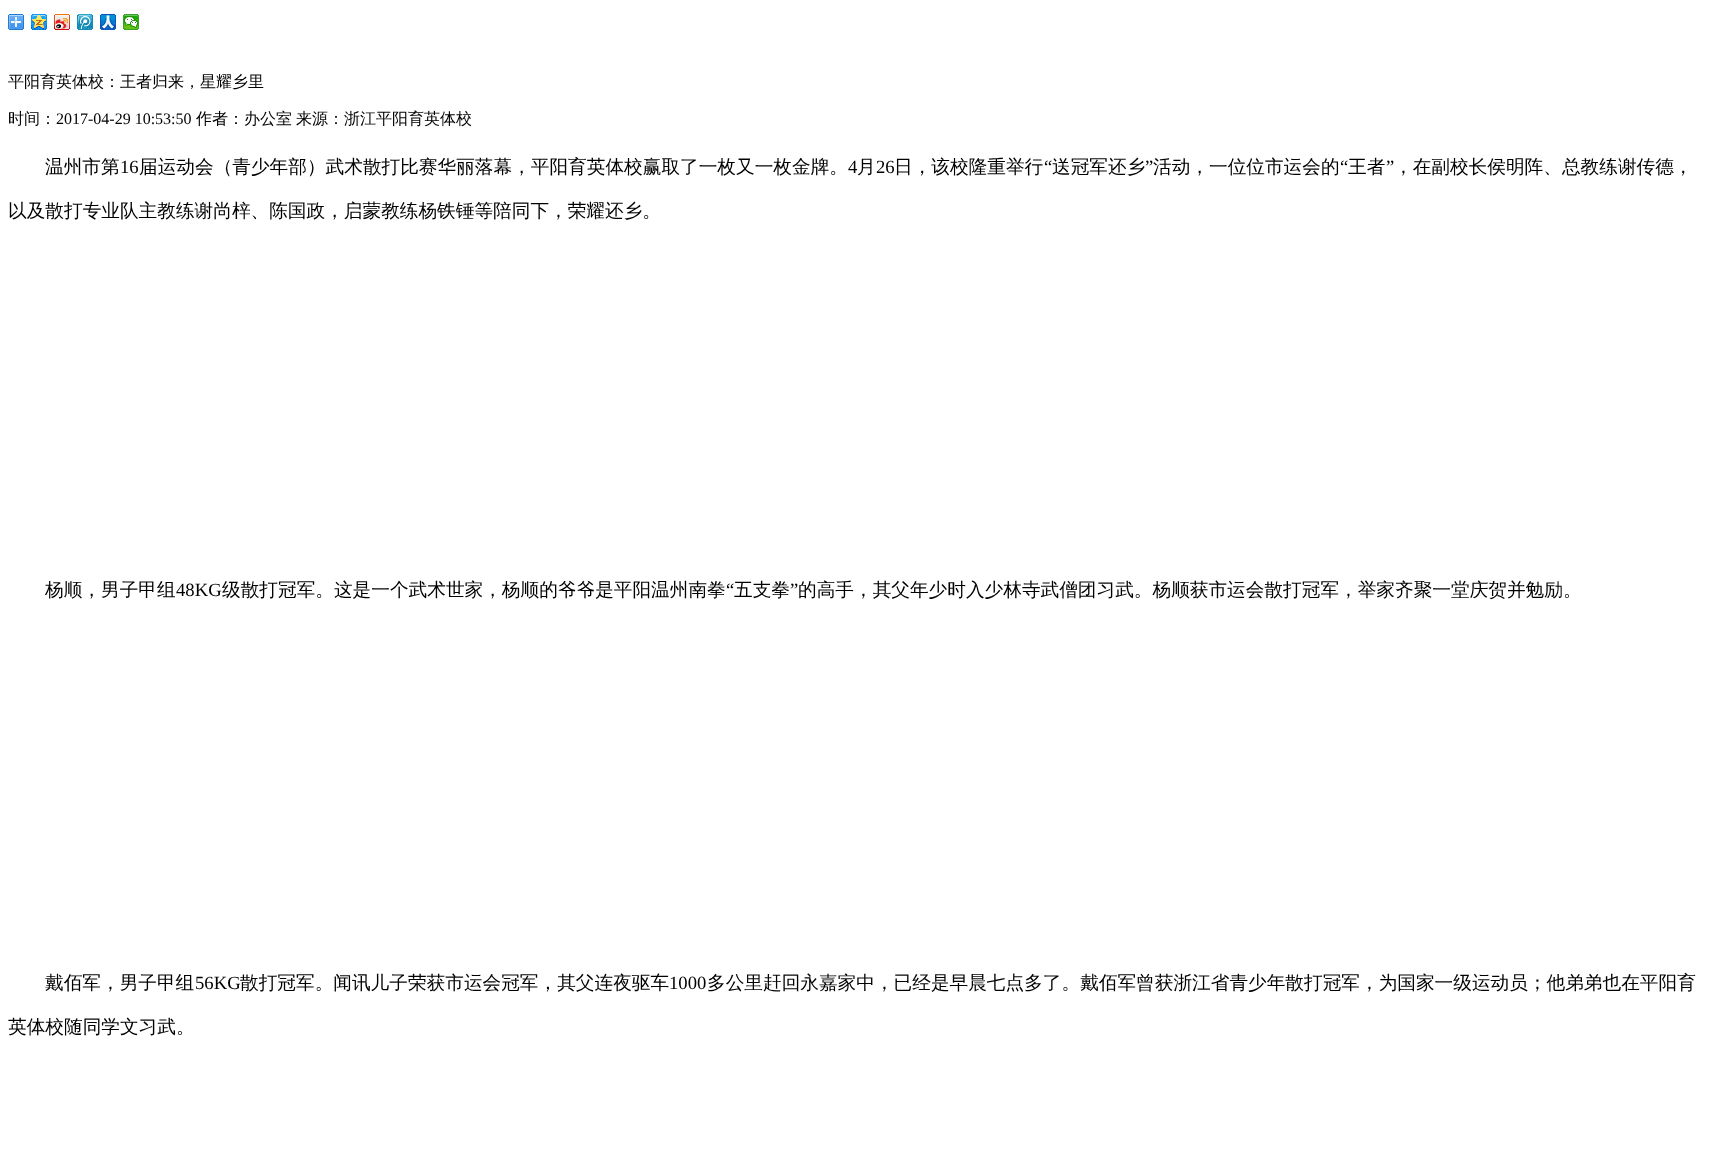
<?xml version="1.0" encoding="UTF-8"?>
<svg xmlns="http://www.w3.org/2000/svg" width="1717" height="1157">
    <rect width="100%" height="100%" fill="#FFFFFF"/>
    <image x="8" y="14" width="16" height="16" href="img_01.png"/>
    <image x="31" y="14" width="16" height="16" href="img_02.png"/>
    <image x="54" y="14" width="16" height="16" href="img_03.png"/>
    <image x="77" y="14" width="16" height="16" href="img_04.png"/>
    <image x="100" y="14" width="16" height="16" href="img_05.png"/>
    <image x="123" y="14" width="16" height="16" href="img_06.png"/>
    <text x="8" y="87" font-family="WenQuanYi Zen Hei" font-size="16" font-weight="500" fill="#000000">平阳育英体校：王者归来，星耀乡里</text>
    <text x="8" y="124" font-family="WenQuanYi Zen Hei" font-size="16" font-weight="500" fill="#000000">时间：</text>
    <text x="56" y="124" font-family="Liberation Serif" font-size="16" fill="#000000">2017-04-29 10:53:50</text>
    <text x="196" y="124" font-family="WenQuanYi Zen Hei" font-size="16" font-weight="500" fill="#000000">作者：办公室</text>
    <text x="296" y="124" font-family="WenQuanYi Zen Hei" font-size="16" font-weight="500" fill="#000000">来源：浙江平阳育英体校</text>
    <text x="45" y="173" font-family="WenQuanYi Zen Hei" font-size="18.67" font-weight="500" fill="#000000">温州市第</text>
    <text x="120" y="173" font-family="Liberation Serif" font-size="18.67" fill="#000000">16</text>
    <text x="139" y="173" font-family="WenQuanYi Zen Hei" font-size="18.67" font-weight="500" fill="#000000">届运动会（青少年部）武术散打比赛华丽落幕，平阳育英体校赢取了一枚又一枚金牌。</text>
    <text x="848" y="173" font-family="Liberation Serif" font-size="18.67" fill="#000000">4</text>
    <text x="857" y="173" font-family="WenQuanYi Zen Hei" font-size="18.67" font-weight="500" fill="#000000">月</text>
    <text x="876" y="173" font-family="Liberation Serif" font-size="18.67" fill="#000000">26</text>
    <text x="894" y="173" font-family="WenQuanYi Zen Hei" font-size="18.67" font-weight="500" fill="#000000">日，该校隆重举行</text>
    <text x="1044" y="173" font-family="Liberation Serif" font-size="18.67" fill="#000000">“</text>
    <text x="1052" y="173" font-family="WenQuanYi Zen Hei" font-size="18.67" font-weight="500" fill="#000000">送冠军还乡</text>
    <text x="1145" y="173" font-family="Liberation Serif" font-size="18.67" fill="#000000">”</text>
    <text x="1153" y="173" font-family="WenQuanYi Zen Hei" font-size="18.67" font-weight="500" fill="#000000">活动，一位位市运会的</text>
    <text x="1340" y="173" font-family="Liberation Serif" font-size="18.67" fill="#000000">“</text>
    <text x="1348" y="173" font-family="WenQuanYi Zen Hei" font-size="18.67" font-weight="500" fill="#000000">王者</text>
    <text x="1386" y="173" font-family="Liberation Serif" font-size="18.67" fill="#000000">”</text>
    <text x="1394" y="173" font-family="WenQuanYi Zen Hei" font-size="18.67" font-weight="500" fill="#000000">，在副校长侯明阵、总教练谢传德，</text>
    <text x="8" y="217" font-family="WenQuanYi Zen Hei" font-size="18.67" font-weight="500" fill="#000000">以及散打专业队主教练谢尚梓、陈国政，启蒙教练杨铁锤等陪同下，荣耀还乡。</text>
    <text x="45" y="596" font-family="WenQuanYi Zen Hei" font-size="18.67" font-weight="500" fill="#000000">杨顺，男子甲组</text>
    <text x="176" y="596" font-family="Liberation Serif" font-size="18.67" fill="#000000">48KG</text>
    <text x="222" y="596" font-family="WenQuanYi Zen Hei" font-size="18.67" font-weight="500" fill="#000000">级散打冠军。这是一个武术世家，杨顺的爷爷是平阳温州南拳</text>
    <text x="726" y="596" font-family="Liberation Serif" font-size="18.67" fill="#000000">“</text>
    <text x="734" y="596" font-family="WenQuanYi Zen Hei" font-size="18.67" font-weight="500" fill="#000000">五支拳</text>
    <text x="790" y="596" font-family="Liberation Serif" font-size="18.67" fill="#000000">”</text>
    <text x="798" y="596" font-family="WenQuanYi Zen Hei" font-size="18.67" font-weight="500" fill="#000000">的高手，其父年少时入少林寺武僧团习武。杨顺获市运会散打冠军，举家齐聚一堂庆贺并勉励。</text>
    <text x="45" y="989" font-family="WenQuanYi Zen Hei" font-size="18.67" font-weight="500" fill="#000000">戴佰军，男子甲组</text>
    <text x="195" y="989" font-family="Liberation Serif" font-size="18.67" fill="#000000">56KG</text>
    <text x="240" y="989" font-family="WenQuanYi Zen Hei" font-size="18.67" font-weight="500" fill="#000000">散打冠军。闻讯儿子荣获市运会冠军，其父连夜驱车</text>
    <text x="669" y="989" font-family="Liberation Serif" font-size="18.67" fill="#000000">1000</text>
    <text x="707" y="989" font-family="WenQuanYi Zen Hei" font-size="18.67" font-weight="500" fill="#000000">多公里赶回永嘉家中，已经是早晨七点多了。戴佰军曾获浙江省青少年散打冠军，为国家一级运动员；他弟弟也在平阳育</text>
    <text x="8" y="1033" font-family="WenQuanYi Zen Hei" font-size="18.67" font-weight="500" fill="#000000">英体校随同学文习武。</text>
</svg>
